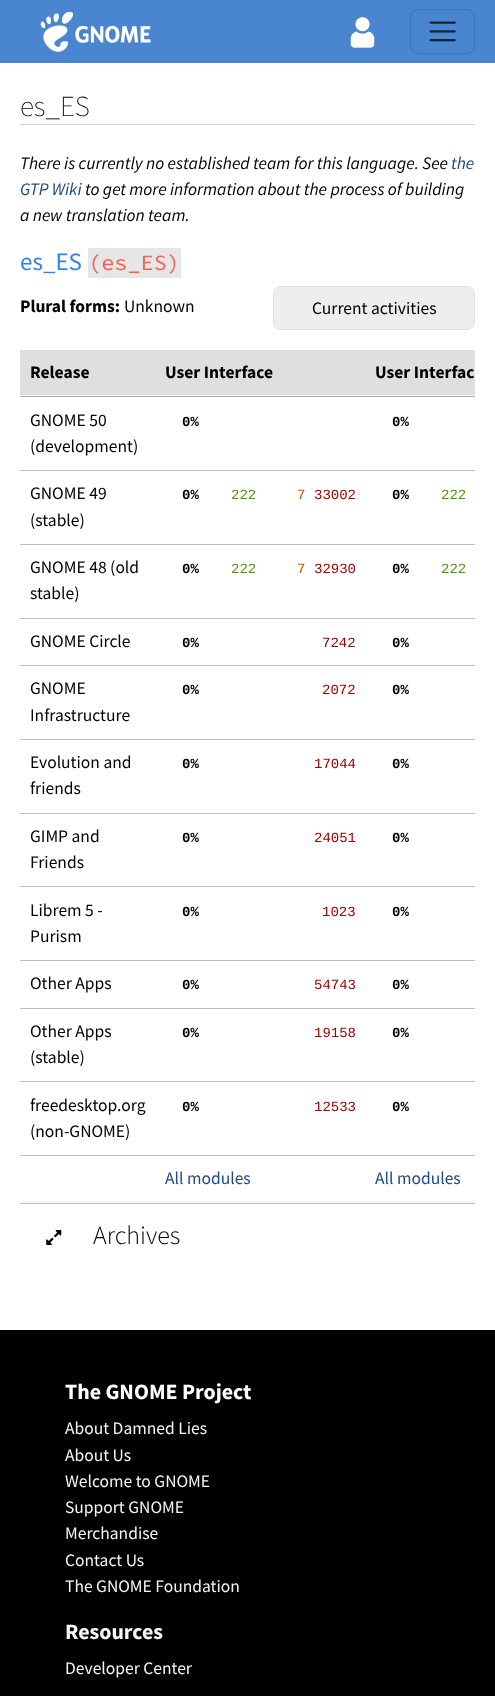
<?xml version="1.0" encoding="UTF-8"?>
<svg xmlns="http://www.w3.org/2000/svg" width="495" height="1696">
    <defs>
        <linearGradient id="g1" gradientUnits="userSpaceOnUse" x1="403" y1="1203" x2="403" y2="1155"><stop offset="0" stop-color="#F4F4F4"/><stop offset="1" stop-color="#FFFFFF"/></linearGradient>
    </defs>
    <rect width="100%" height="100%" fill="#FFFFFF"/>
    <rect x="0" y="0" width="495" height="63" fill="#4A86CF"/>
    <image x="40" y="11" width="111" height="41" href="img_01.png"/>
    <image x="350" y="17" width="25" height="31" href="img_02.png"/>
    <rect x="410.5" y="9.5" width="64" height="44" rx="7.5" fill="none" stroke="#3F72B0"/>
    <image x="429" y="21" width="27" height="21" href="img_03.png"/>
    <rect x="20" y="124" width="455" height="1" fill="#D3D7CF"/>
    <text x="20" y="116" font-family="Source Sans Pro" font-size="29" font-weight="200" fill="#000000">es_ES</text>
    <text x="20" y="169" font-family="Source Sans Pro" font-size="17.5" font-style="italic" fill="#000000">There is currently no established team for this language. See</text>
    <text x="451" y="169" font-family="Source Sans Pro" font-size="17.5" font-style="italic" fill="#204A87">the</text>
    <text x="20" y="195" font-family="Source Sans Pro" font-size="17.5" font-style="italic" fill="#204A87">GTP Wiki</text>
    <text x="85" y="195" font-family="Source Sans Pro" font-size="17.5" font-style="italic" fill="#000000">to get more information about the process of building</text>
    <text x="20" y="221" font-family="Source Sans Pro" font-size="17.5" font-style="italic" fill="#000000">a new translation team.</text>
    <text x="20" y="270" font-family="Source Sans Pro" font-size="25" fill="#3584E4">es_ES</text>
    <rect x="88" y="248" width="93" height="30" fill="#E6E6E6"/>
    <text x="88" y="270" font-family="Source Code Pro" font-size="21.9" fill="#F66151">(es_ES)</text>
    <text x="20" y="312" font-family="Source Sans Pro" font-size="17.5" font-weight="700" fill="#000000">Plural forms:</text>
    <text x="124" y="312" font-family="Source Sans Pro" font-size="17.5" fill="#000000">Unknown</text>
    <rect x="273.5" y="286.5" width="201" height="43" rx="7.5" fill="#EEEEEE" stroke="#E1E1E1"/>
    <text x="312" y="314" font-family="Source Sans Pro" font-size="17.5" fill="#000000">Current activities</text>
    <rect x="20" y="350" width="455" height="45" fill="#DFDEE0"/>
    <text x="30" y="378" font-family="Source Sans Pro" font-size="17.5" font-weight="700" fill="#000000">Release</text>
    <text x="165" y="378" font-family="Source Sans Pro" font-size="17.5" font-weight="700" fill="#000000">User Interface</text>
    <rect x="20" y="396" width="455" height="1" fill="#B2B2B3"/>
    <text x="375" y="378" font-family="Source Sans Pro" font-size="17.5" font-weight="700" fill="#000000">User Interfac</text>
    <text font-family="Source Sans Pro" font-size="17.5" fill="#000000">
        <tspan x="30" y="426">GNOME 50</tspan>
        <tspan x="30" y="452">(development)</tspan>
    </text>
    <text x="182" y="426" font-family="Liberation Mono" font-size="14" font-weight="700" fill="#000000">0%</text>
    <rect x="20" y="470" width="455" height="1" fill="#C0BFBC"/>
    <text x="392" y="426" font-family="Liberation Mono" font-size="14" font-weight="700" fill="#000000">0%</text>
    <text font-family="Source Sans Pro" font-size="17.5" fill="#000000">
        <tspan x="30" y="499">GNOME 49</tspan>
        <tspan x="30" y="526">(stable)</tspan>
    </text>
    <text x="182" y="499" font-family="Liberation Mono" font-size="14" font-weight="700" fill="#000000">0%</text>
    <text x="231" y="499" font-family="Liberation Mono" font-size="14" fill="#4E9A06">222</text>
    <text x="297" y="499" font-family="Liberation Mono" font-size="14" fill="#CE5C00">7</text>
    <text x="314" y="499" font-family="Liberation Mono" font-size="14" fill="#A40000">33002</text>
    <rect x="20" y="544" width="455" height="1" fill="#C0BFBC"/>
    <text x="392" y="499" font-family="Liberation Mono" font-size="14" font-weight="700" fill="#000000">0%</text>
    <text x="441" y="499" font-family="Liberation Mono" font-size="14" fill="#4E9A06">222</text>
    <text font-family="Source Sans Pro" font-size="17.5" fill="#000000">
        <tspan x="30" y="573">GNOME 48 (old</tspan>
        <tspan x="30" y="599">stable)</tspan>
    </text>
    <text x="182" y="573" font-family="Liberation Mono" font-size="14" font-weight="700" fill="#000000">0%</text>
    <text x="231" y="573" font-family="Liberation Mono" font-size="14" fill="#4E9A06">222</text>
    <text x="297" y="573" font-family="Liberation Mono" font-size="14" fill="#CE5C00">7</text>
    <text x="314" y="573" font-family="Liberation Mono" font-size="14" fill="#A40000">32930</text>
    <rect x="20" y="618" width="455" height="1" fill="#C0BFBC"/>
    <text x="392" y="573" font-family="Liberation Mono" font-size="14" font-weight="700" fill="#000000">0%</text>
    <text x="441" y="573" font-family="Liberation Mono" font-size="14" fill="#4E9A06">222</text>
    <text x="30" y="647" font-family="Source Sans Pro" font-size="17.5" fill="#000000">GNOME Circle</text>
    <text x="182" y="647" font-family="Liberation Mono" font-size="14" font-weight="700" fill="#000000">0%</text>
    <text x="322" y="647" font-family="Liberation Mono" font-size="14" fill="#A40000">7242</text>
    <rect x="20" y="665" width="455" height="1" fill="#C0BFBC"/>
    <text x="392" y="647" font-family="Liberation Mono" font-size="14" font-weight="700" fill="#000000">0%</text>
    <text font-family="Source Sans Pro" font-size="17.5" fill="#000000">
        <tspan x="30" y="694">GNOME</tspan>
        <tspan x="30" y="721">Infrastructure</tspan>
    </text>
    <text x="182" y="694" font-family="Liberation Mono" font-size="14" font-weight="700" fill="#000000">0%</text>
    <text x="322" y="694" font-family="Liberation Mono" font-size="14" fill="#A40000">2072</text>
    <rect x="20" y="739" width="455" height="1" fill="#C0BFBC"/>
    <text x="392" y="694" font-family="Liberation Mono" font-size="14" font-weight="700" fill="#000000">0%</text>
    <text font-family="Source Sans Pro" font-size="17.5" fill="#000000">
        <tspan x="30" y="768">Evolution and</tspan>
        <tspan x="30" y="794">friends</tspan>
    </text>
    <text x="182" y="768" font-family="Liberation Mono" font-size="14" font-weight="700" fill="#000000">0%</text>
    <text x="314" y="768" font-family="Liberation Mono" font-size="14" fill="#A40000">17044</text>
    <rect x="20" y="813" width="455" height="1" fill="#C0BFBC"/>
    <text x="392" y="768" font-family="Liberation Mono" font-size="14" font-weight="700" fill="#000000">0%</text>
    <text font-family="Source Sans Pro" font-size="17.5" fill="#000000">
        <tspan x="30" y="842">GIMP and</tspan>
        <tspan x="30" y="868">Friends</tspan>
    </text>
    <text x="182" y="842" font-family="Liberation Mono" font-size="14" font-weight="700" fill="#000000">0%</text>
    <text x="314" y="842" font-family="Liberation Mono" font-size="14" fill="#A40000">24051</text>
    <rect x="20" y="886" width="455" height="1" fill="#C0BFBC"/>
    <text x="392" y="842" font-family="Liberation Mono" font-size="14" font-weight="700" fill="#000000">0%</text>
    <text font-family="Source Sans Pro" font-size="17.5" fill="#000000">
        <tspan x="30" y="916">Librem 5 -</tspan>
        <tspan x="30" y="942">Purism</tspan>
    </text>
    <text x="182" y="916" font-family="Liberation Mono" font-size="14" font-weight="700" fill="#000000">0%</text>
    <text x="322" y="916" font-family="Liberation Mono" font-size="14" fill="#A40000">1023</text>
    <rect x="20" y="960" width="455" height="1" fill="#C0BFBC"/>
    <text x="392" y="916" font-family="Liberation Mono" font-size="14" font-weight="700" fill="#000000">0%</text>
    <text x="30" y="989" font-family="Source Sans Pro" font-size="17.5" fill="#000000">Other Apps</text>
    <text x="182" y="989" font-family="Liberation Mono" font-size="14" font-weight="700" fill="#000000">0%</text>
    <text x="314" y="989" font-family="Liberation Mono" font-size="14" fill="#A40000">54743</text>
    <rect x="20" y="1008" width="455" height="1" fill="#C0BFBC"/>
    <text x="392" y="989" font-family="Liberation Mono" font-size="14" font-weight="700" fill="#000000">0%</text>
    <text font-family="Source Sans Pro" font-size="17.5" fill="#000000">
        <tspan x="30" y="1037">Other Apps</tspan>
        <tspan x="30" y="1063">(stable)</tspan>
    </text>
    <text x="182" y="1037" font-family="Liberation Mono" font-size="14" font-weight="700" fill="#000000">0%</text>
    <text x="314" y="1037" font-family="Liberation Mono" font-size="14" fill="#A40000">19158</text>
    <rect x="20" y="1081" width="455" height="1" fill="#C0BFBC"/>
    <text x="392" y="1037" font-family="Liberation Mono" font-size="14" font-weight="700" fill="#000000">0%</text>
    <text font-family="Source Sans Pro" font-size="17.5" fill="#000000">
        <tspan x="30" y="1111">freedesktop.org</tspan>
        <tspan x="30" y="1137">(non-GNOME)</tspan>
    </text>
    <text x="182" y="1111" font-family="Liberation Mono" font-size="14" font-weight="700" fill="#000000">0%</text>
    <text x="314" y="1111" font-family="Liberation Mono" font-size="14" fill="#A40000">12533</text>
    <rect x="20" y="1155" width="455" height="1" fill="#C0BFBC"/>
    <text x="392" y="1111" font-family="Liberation Mono" font-size="14" font-weight="700" fill="#000000">0%</text>
    <rect x="20" y="1201" width="455" height="2" fill="url(#g1)"/>
    <text x="165" y="1184" font-family="Source Sans Pro" font-size="17.5" fill="#204A87">All modules</text>
    <rect x="20" y="1203" width="455" height="1" fill="#C0BFBC"/>
    <text x="375" y="1184" font-family="Source Sans Pro" font-size="17.5" fill="#204A87">All modules</text>
    <image x="46" y="1230" width="16" height="15" href="img_04.png"/>
    <text x="93" y="1244" font-family="Source Sans Pro" font-size="26" font-weight="300" fill="#000000">Archives</text>
    <rect x="0" y="1330" width="495" height="366" fill="#000000"/>
    <text x="65" y="1399" font-family="Source Sans Pro" font-size="21.9" font-weight="700" fill="#FFFFFF">The GNOME Project</text>
    <text font-family="Source Sans Pro" font-size="17.5" fill="#F6F5F4">
        <tspan x="65" y="1434">About Damned Lies</tspan>
        <tspan x="65" y="1461">About Us</tspan>
        <tspan x="65" y="1487">Welcome to GNOME</tspan>
        <tspan x="65" y="1513">Support GNOME</tspan>
        <tspan x="65" y="1539">Merchandise</tspan>
        <tspan x="65" y="1566">Contact Us</tspan>
        <tspan x="65" y="1592">The GNOME Foundation</tspan>
    </text>
    <text x="65" y="1639" font-family="Source Sans Pro" font-size="21.9" font-weight="700" fill="#F6F5F4">Resources</text>
    <text x="65" y="1674" font-family="Source Sans Pro" font-size="17.5" fill="#F6F5F4">Developer Center</text>
</svg>
